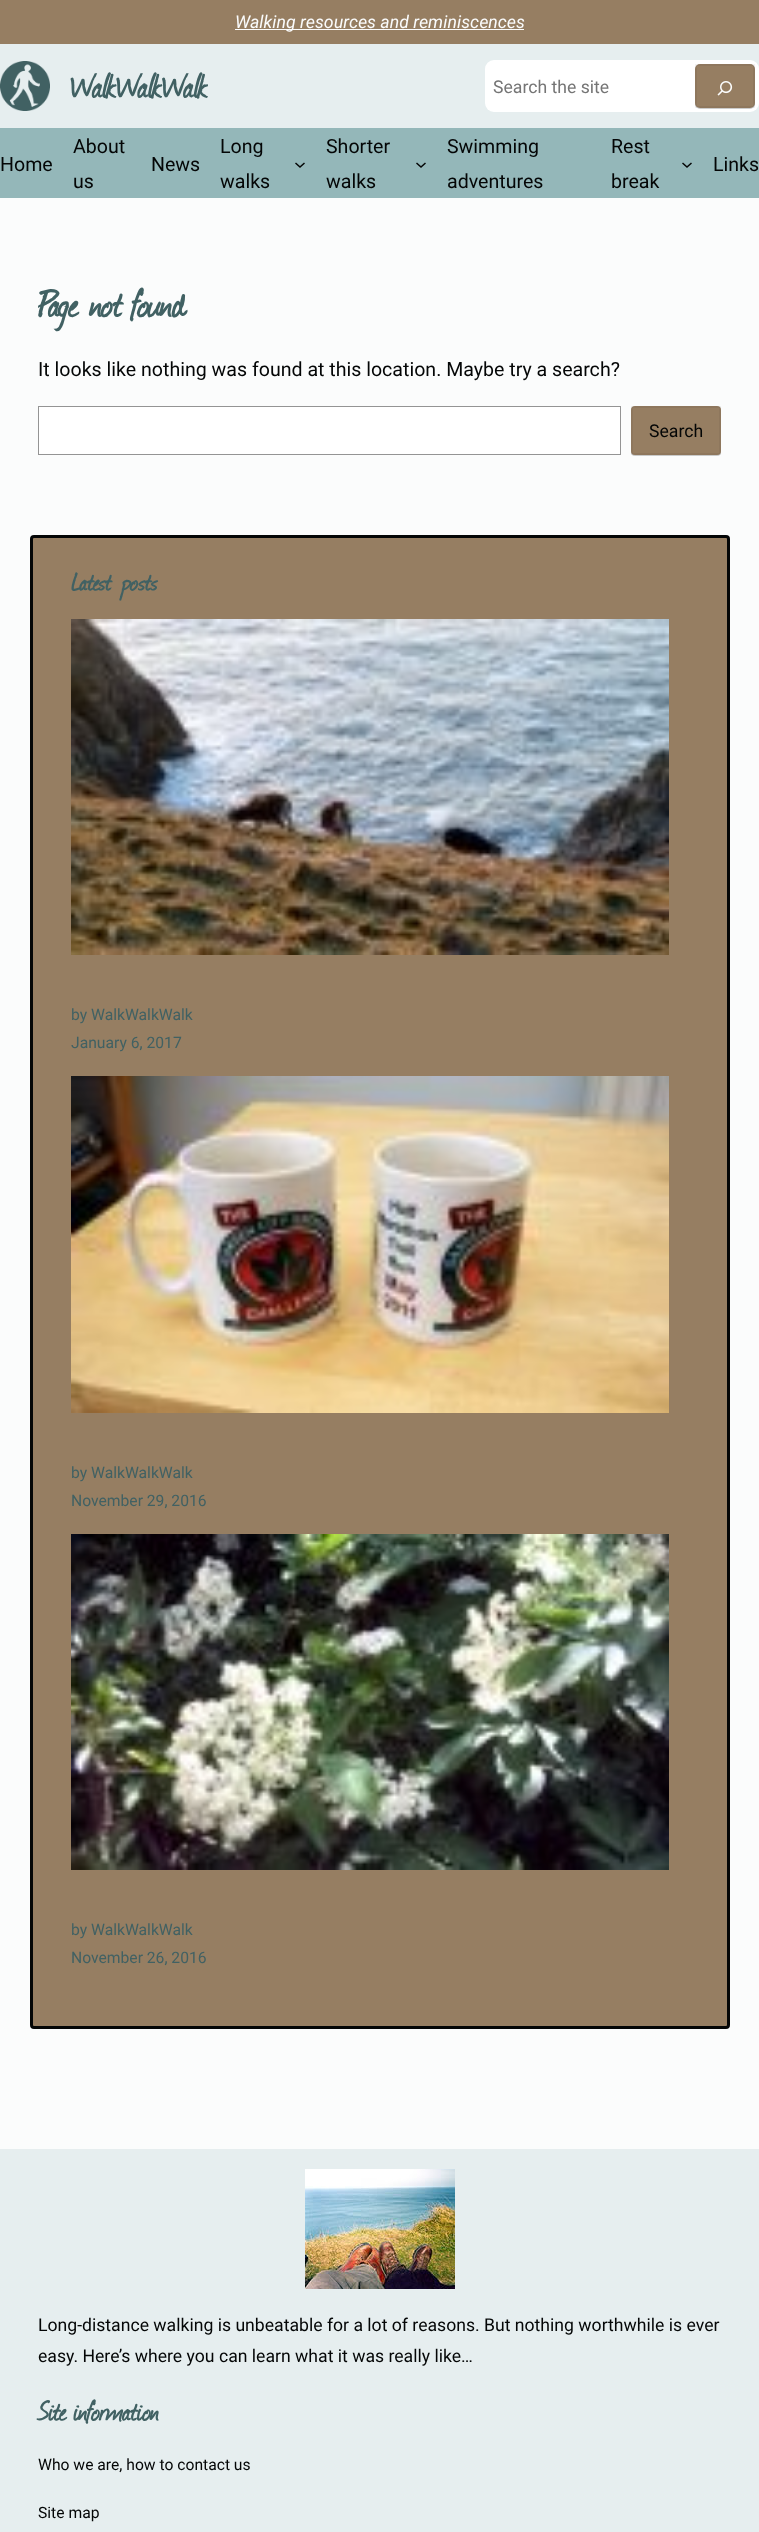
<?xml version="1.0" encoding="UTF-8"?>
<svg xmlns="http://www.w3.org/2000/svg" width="759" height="2532">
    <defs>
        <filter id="blur1" x="-50%" y="-200%" width="200%" height="500%"><feGaussianBlur stdDeviation="0.5"/></filter>
    </defs>
    <rect width="100%" height="100%" fill="#FBFCFC"/>
    <rect x="0" y="0" width="759" height="44" fill="#967E62"/>
    <rect x="235" y="29" width="289" height="1" fill="#FBFCFC"/>
    <text x="235" y="28" font-family="Roboto" font-size="18" font-style="italic" fill="#FBFCFC">Walking resources and reminiscences</text>
    <rect x="0" y="44" width="759" height="84" fill="#E6EEEF"/>
    <image x="0" y="61" width="50" height="50" href="img_01.png"/>
    <text x="70" y="97" font-family="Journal" font-size="40" font-weight="700" fill="#416163">WalkWalkWalk</text>
    <rect x="485" y="60" width="274" height="52" rx="9" fill="#FFFFFF"/>
    <text x="493" y="93" font-family="Roboto" font-size="18" fill="#757575">Search the site</text>
    <rect x="695" y="65" width="60" height="44" rx="5" fill="#000000" fill-opacity="0.2" filter="url(#blur1)"/>
    <rect x="695" y="64" width="60" height="44" rx="5" fill="#967E62"/>
    <rect x="696" y="65" width="58" height="42" fill="none" stroke="#000000" stroke-opacity="0.05" stroke-width="2"/>
    <image x="717" y="81" width="16" height="15" href="img_02.png"/>
    <rect x="0" y="128" width="759" height="70" fill="#94B7B9"/>
    <text x="0" y="171" font-family="Roboto" font-size="20" fill="#040606">Home</text>
    <text font-family="Roboto" font-size="20" fill="#040606">
        <tspan x="73" y="153">About</tspan>
        <tspan x="73" y="188">us</tspan>
    </text>
    <text x="151" y="171" font-family="Roboto" font-size="20" fill="#040606">News</text>
    <text font-family="Roboto" font-size="20" fill="#040606">
        <tspan x="220" y="153">Long</tspan>
        <tspan x="220" y="188">walks</tspan>
    </text>
    <path d="M 295.5 163 L 300 167 L 304.5 163" fill="none" stroke="#040606" stroke-width="1.5"/>
    <text font-family="Roboto" font-size="20" fill="#040606">
        <tspan x="326" y="153">Shorter</tspan>
        <tspan x="326" y="188">walks</tspan>
    </text>
    <path d="M 416.5 163 L 421 167 L 425.5 163" fill="none" stroke="#040606" stroke-width="1.5"/>
    <text font-family="Roboto" font-size="20" fill="#040606">
        <tspan x="447" y="153">Swimming</tspan>
        <tspan x="447" y="188">adventures</tspan>
    </text>
    <text font-family="Roboto" font-size="20" fill="#040606">
        <tspan x="611" y="153">Rest</tspan>
        <tspan x="611" y="188">break</tspan>
    </text>
    <path d="M 682.5 163 L 687 167 L 691.5 163" fill="none" stroke="#040606" stroke-width="1.5"/>
    <text x="713" y="171" font-family="Roboto" font-size="20" fill="#040606">Links</text>
    <text x="38" y="316" font-family="Journal" font-size="44" font-weight="700" fill="#416163">Page not found</text>
    <text x="38" y="376" font-family="Roboto" font-size="20" fill="#040606">It looks like nothing was found at this location. Maybe try a search?</text>
    <rect x="38.5" y="406.5" width="582" height="48" fill="#FFFFFF" stroke="#949494"/>
    <rect x="631" y="407" width="90" height="49" rx="4" fill="#000000" fill-opacity="0.2" filter="url(#blur1)"/>
    <rect x="631" y="406" width="90" height="49" rx="4" fill="#967E62"/>
    <rect x="632" y="407" width="88" height="47" fill="none" stroke="#000000" stroke-opacity="0.05" stroke-width="2"/>
    <text x="649" y="437" font-family="Roboto" font-size="18" fill="#040606">Search</text>
    <rect x="31.5" y="536.5" width="697" height="1491" rx="2.5" fill="#967E62" stroke="#040606" stroke-width="3"/>
    <text x="71" y="590" font-family="Journal" font-size="30" font-weight="700" fill="#416163">Latest posts</text>
    <image x="71" y="619" width="598" height="336" href="img_03.png"/>
    <text font-family="Roboto" font-size="16" fill="#416163">
        <tspan x="71" y="1020">by WalkWalkWalk</tspan>
        <tspan x="71" y="1048">January 6, 2017</tspan>
    </text>
    <image x="71" y="1076" width="598" height="337" href="img_04.png"/>
    <text font-family="Roboto" font-size="16" fill="#416163">
        <tspan x="71" y="1478">by WalkWalkWalk</tspan>
        <tspan x="71" y="1506">November 29, 2016</tspan>
    </text>
    <image x="71" y="1534" width="598" height="336" href="img_05.png"/>
    <text font-family="Roboto" font-size="16" fill="#416163">
        <tspan x="71" y="1935">by WalkWalkWalk</tspan>
        <tspan x="71" y="1963">November 26, 2016</tspan>
    </text>
    <rect x="0" y="2149" width="759" height="383" fill="#E6EEEF"/>
    <image x="305" y="2169" width="150" height="120" href="img_06.png"/>
    <text font-family="Roboto" font-size="18" fill="#040606">
        <tspan x="38" y="2331">Long-distance walking is unbeatable for a lot of reasons. But nothing worthwhile is ever</tspan>
        <tspan x="38" y="2362">easy. Here’s where you can learn what it was really like…</tspan>
    </text>
    <text x="38" y="2420" font-family="Journal" font-size="32" font-weight="700" fill="#416163">Site information</text>
    <text x="38" y="2470" font-family="Roboto" font-size="16" fill="#040606">Who we are, how to contact us</text>
    <text x="38" y="2518" font-family="Roboto" font-size="16" fill="#040606">Site map</text>
</svg>
